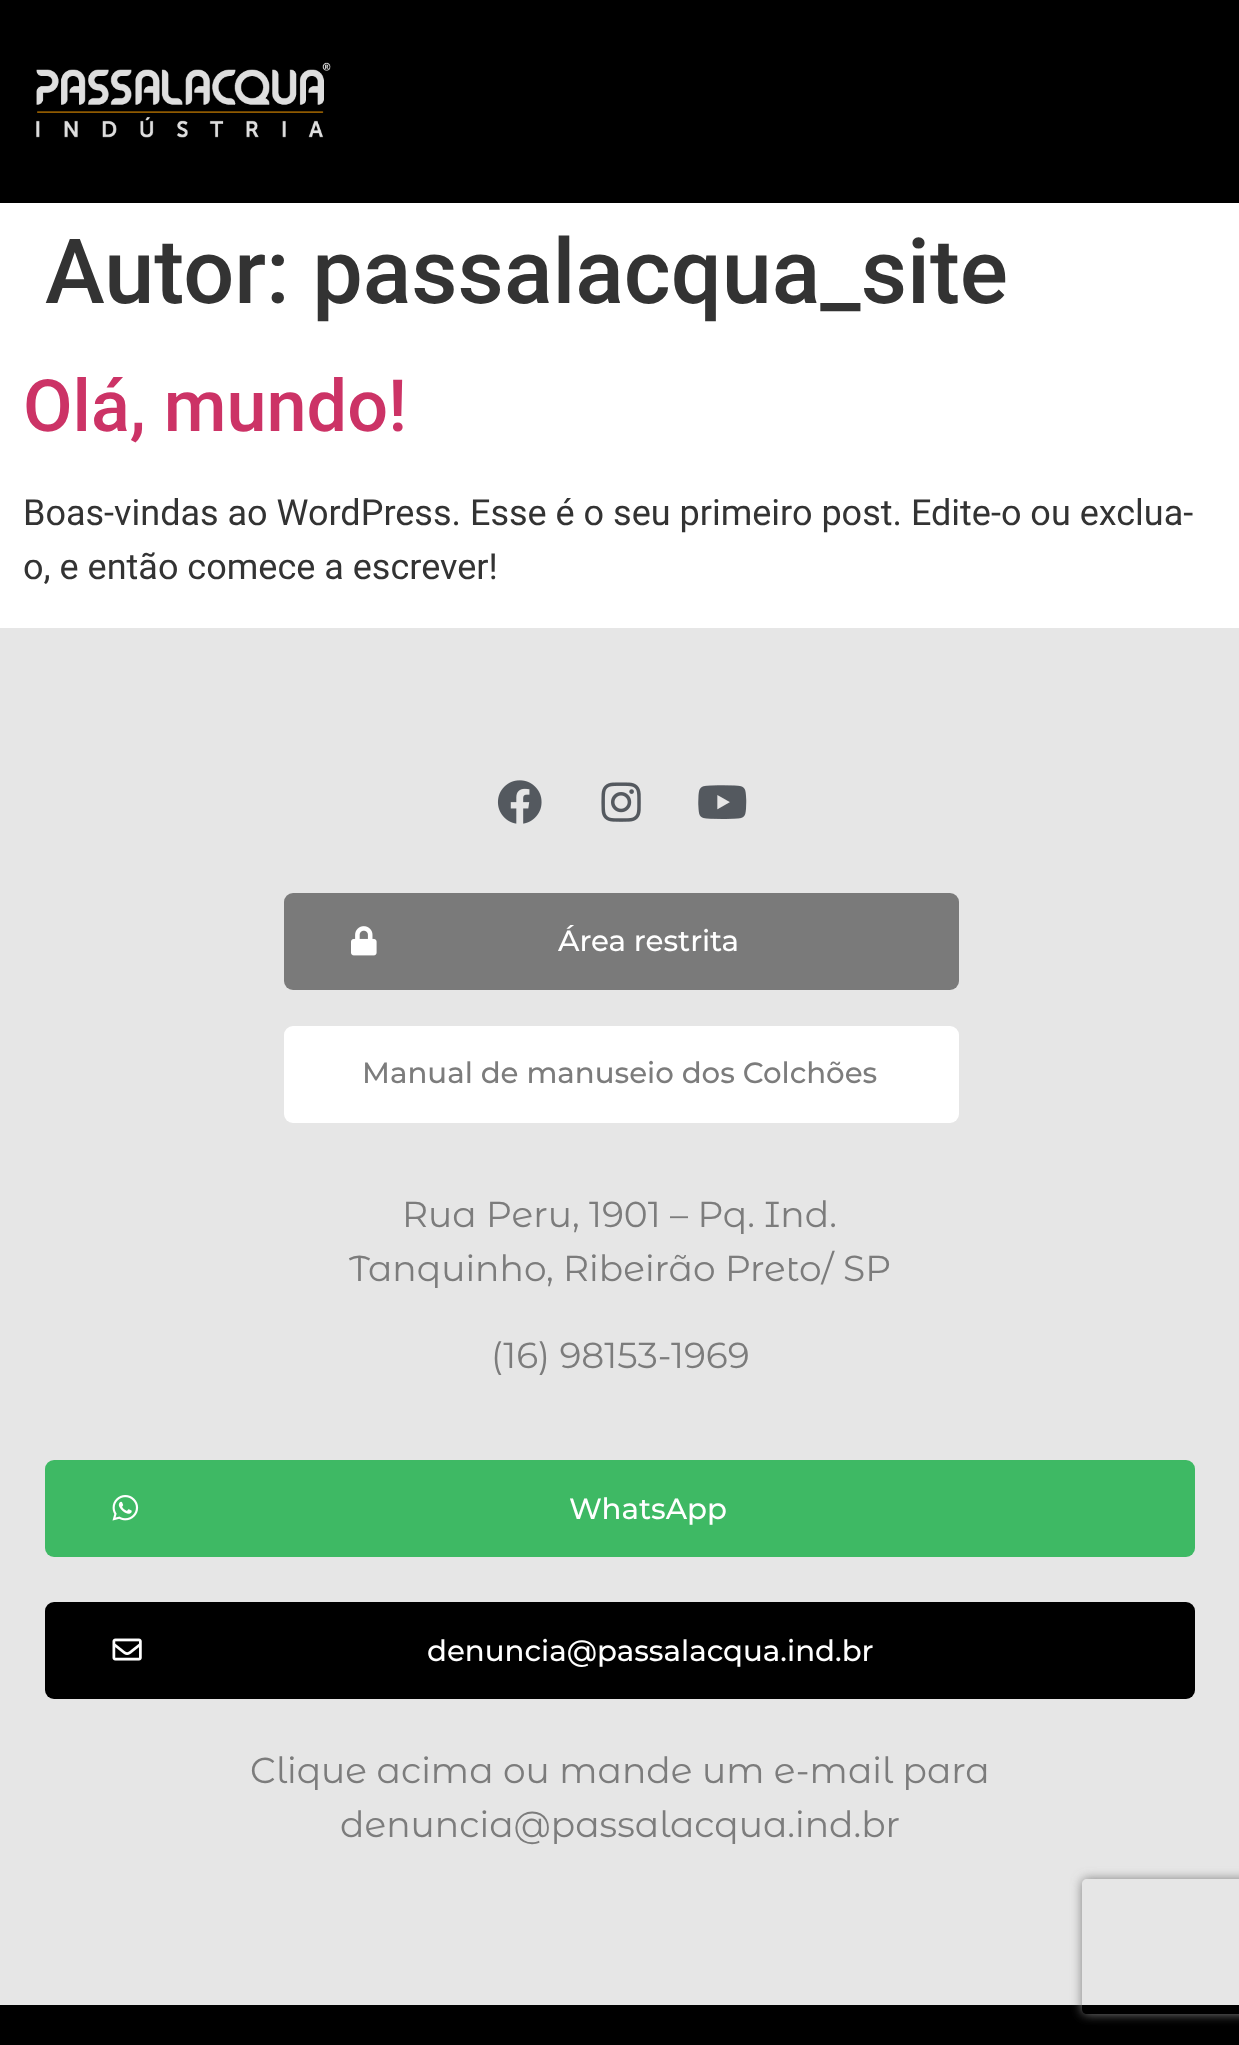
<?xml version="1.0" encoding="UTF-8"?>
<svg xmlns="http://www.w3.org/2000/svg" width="1239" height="2045">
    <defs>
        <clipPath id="clip1"><path d="M 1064 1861 H 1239 V 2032 H 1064 Z M 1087 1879 H 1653 C 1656 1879 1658 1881 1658 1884 V 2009 C 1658 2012 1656 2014 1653 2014 H 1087 C 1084 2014 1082 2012 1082 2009 V 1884 C 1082 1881 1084 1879 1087 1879 Z" clip-rule="evenodd"/></clipPath>
        <filter id="blur1" x="-50%" y="-200%" width="200%" height="500%"><feGaussianBlur stdDeviation="5.5"/></filter>
    </defs>
    <rect width="100%" height="100%" fill="#FFFFFF"/>
    <rect x="0" y="0" width="1239" height="203" fill="#000000"/>
    <image x="36" y="62" width="295" height="76" href="img_01.png"/>
    <text x="45" y="303" font-family="Roboto" font-size="90" font-weight="500" fill="#333333">Autor: passalacqua_site</text>
    <text x="23" y="431" font-family="Roboto" font-size="72" font-weight="500" fill="#CC3366">Olá, mundo!</text>
    <text font-family="Roboto" font-size="36" fill="#333333">
        <tspan x="23" y="525">Boas-vindas ao WordPress. Esse é o seu primeiro post. Edite-o ou exclua-</tspan>
        <tspan x="23" y="579">o, e então comece a escrever!</tspan>
    </text>
    <rect x="0" y="628" width="1239" height="1377" fill="#E6E6E6"/>
    <image x="497" y="780" width="45" height="44" href="img_02.png"/>
    <image x="601" y="782" width="40" height="40" href="img_03.png"/>
    <image x="698" y="785" width="49" height="34" href="img_04.png"/>
    <rect x="284" y="893" width="675" height="97" rx="9" fill="#7A7A7A"/>
    <image x="351" y="926" width="26" height="30" href="img_05.png"/>
    <text x="558" y="951" font-family="Montserrat" font-size="29.25" font-weight="500" fill="#FFFFFF">Área restrita</text>
    <rect x="284" y="1026" width="675" height="97" rx="9" fill="#FFFFFF"/>
    <text x="362" y="1083" font-family="Montserrat" font-size="29.25" font-weight="500" fill="#7C7C7C">Manual de manuseio dos Colchões</text>
    <text x="402" y="1227" font-family="Montserrat Alternates" font-size="36" fill="#7C7C7C">Rua Peru, 1901 – Pq. Ind.</text>
    <text x="349" y="1281" font-family="Montserrat Alternates" font-size="36" fill="#7C7C7C">Tanquinho, Ribeirão Preto/ SP</text>
    <text x="491" y="1368" font-family="Montserrat Alternates" font-size="36" fill="#7C7C7C">(16) 98153-1969</text>
    <rect x="45" y="1460" width="1150" height="97" rx="9" fill="#3EB964"/>
    <image x="112" y="1495" width="27" height="26" href="img_06.png"/>
    <text x="569" y="1519" font-family="Montserrat" font-size="29.25" font-weight="500" fill="#FFFFFF">WhatsApp</text>
    <rect x="45" y="1602" width="1150" height="97" rx="9" fill="#000000"/>
    <image x="112" y="1638" width="30" height="23" href="img_07.png"/>
    <text x="427" y="1661" font-family="Montserrat" font-size="29.25" font-weight="500" fill="#FFFFFF">denuncia@passalacqua.ind.br</text>
    <text x="250" y="1783" font-family="Montserrat Alternates" font-size="36" fill="#7C7C7C">Clique acima ou mande um e-mail para</text>
    <text x="340" y="1837" font-family="Montserrat Alternates" font-size="36" fill="#7C7C7C">denuncia@passalacqua.ind.br</text>
    <rect x="0" y="2005" width="1239" height="40" fill="#000000"/>
    <g clip-path="url(#clip1)">
        <rect x="1082" y="1879" width="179" height="135" rx="5" fill="#808080" filter="url(#blur1)"/>
    </g>
</svg>
